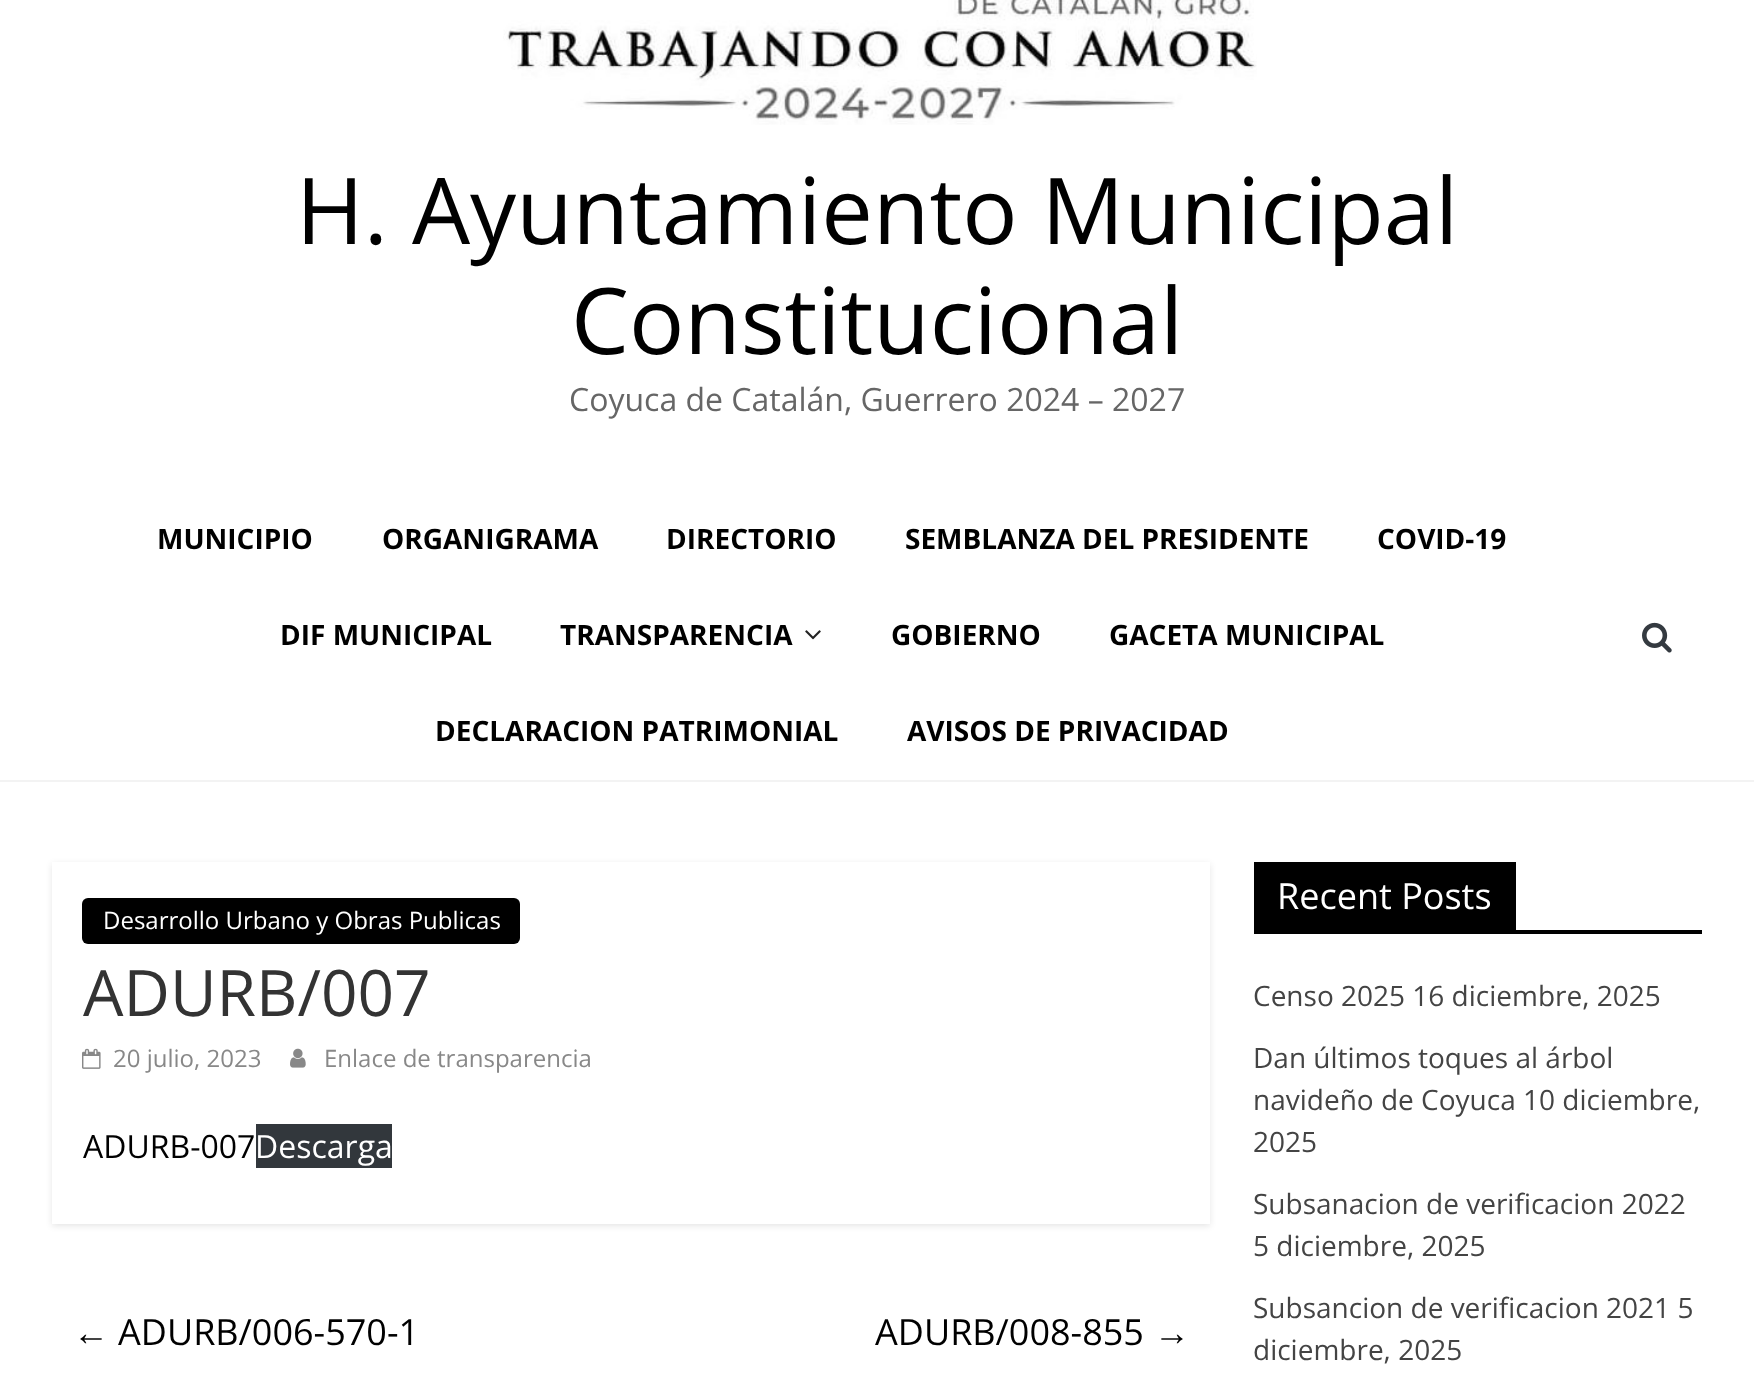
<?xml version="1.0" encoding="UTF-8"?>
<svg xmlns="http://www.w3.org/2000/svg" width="1754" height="1373">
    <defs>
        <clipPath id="clip1"><path d="M 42 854 H 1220 V 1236 H 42 Z M 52 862 H 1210 V 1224 H 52 Z" clip-rule="evenodd"/></clipPath>
        <filter id="blur1" x="-50%" y="-200%" width="200%" height="500%"><feGaussianBlur stdDeviation="3"/></filter>
    </defs>
    <rect width="100%" height="100%" fill="#FFFFFF"/>
    <image x="503" y="0" width="754" height="125" href="img_01.png"/>
    <text x="296" y="244" font-family="Open Sans" font-size="92" fill="#000000">H. Ayuntamiento Municipal</text>
    <text x="571" y="354" font-family="Open Sans" font-size="92" fill="#000000">Constitucional</text>
    <text x="569" y="411" font-family="Open Sans" font-size="32" fill="#666666">Coyuca de Catalán, Guerrero 2024 – 2027</text>
    <rect x="0" y="780" width="1754" height="2" fill="#F3F3F3"/>
    <text x="157" y="549" font-family="Open Sans" font-size="28" font-weight="700" fill="#000000">MUNICIPIO</text>
    <text x="382" y="549" font-family="Open Sans" font-size="28" font-weight="700" fill="#000000">ORGANIGRAMA</text>
    <text x="666" y="549" font-family="Open Sans" font-size="28" font-weight="700" fill="#000000">DIRECTORIO</text>
    <text x="905" y="549" font-family="Open Sans" font-size="28" font-weight="700" fill="#000000">SEMBLANZA DEL PRESIDENTE</text>
    <text x="1377" y="549" font-family="Open Sans" font-size="28" font-weight="700" fill="#000000">COVID-19</text>
    <text x="280" y="645" font-family="Open Sans" font-size="28" font-weight="700" fill="#000000">DIF MUNICIPAL</text>
    <text x="560" y="645" font-family="Open Sans" font-size="28" font-weight="700" fill="#000000">TRANSPARENCIA</text>
    <image x="805" y="630" width="16" height="10" href="img_02.png"/>
    <text x="891" y="645" font-family="Open Sans" font-size="28" font-weight="700" fill="#000000">GOBIERNO</text>
    <text x="1109" y="645" font-family="Open Sans" font-size="28" font-weight="700" fill="#000000">GACETA MUNICIPAL</text>
    <text x="435" y="741" font-family="Open Sans" font-size="28" font-weight="700" fill="#000000">DECLARACION PATRIMONIAL</text>
    <text x="907" y="741" font-family="Open Sans" font-size="28" font-weight="700" fill="#000000">AVISOS DE PRIVACIDAD</text>
    <image x="1642" y="622" width="30" height="31" href="img_03.png"/>
    <g clip-path="url(#clip1)">
        <rect x="52" y="864" width="1158" height="362" fill="#000000" fill-opacity="0.1" filter="url(#blur1)"/>
    </g>
    <rect x="82" y="898" width="438" height="46" rx="6" fill="#000000"/>
    <text x="103" y="929" font-family="Open Sans" font-size="24" fill="#FFFFFF">Desarrollo Urbano y Obras Publicas</text>
    <text x="83" y="1016" font-family="Open Sans" font-size="64" fill="#333333">ADURB/007</text>
    <image x="82" y="1048" width="19" height="21" href="img_04.png"/>
    <text x="113" y="1067" font-family="Open Sans" font-size="24" fill="#888888">20 julio, 2023</text>
    <image x="290" y="1048" width="16" height="20" href="img_05.png"/>
    <text x="324" y="1067" font-family="Open Sans" font-size="24" fill="#888888">Enlace de transparencia</text>
    <text x="83" y="1158" font-family="Open Sans" font-size="32" fill="#000000">ADURB-007</text>
    <rect x="256" y="1124" width="136" height="44" fill="#32373C"/>
    <text x="255" y="1158" font-family="Open Sans" font-size="32" fill="#FFFFFF">Descarga</text>
    <text x="73" y="1345" font-family="Liberation Serif" font-size="36" fill="#000000">←</text>
    <text x="118" y="1345" font-family="Open Sans" font-size="36" fill="#000000">ADURB/006-570-1</text>
    <text x="875" y="1345" font-family="Open Sans" font-size="36" fill="#000000">ADURB/008-855</text>
    <text x="1154" y="1345" font-family="Liberation Serif" font-size="36" fill="#000000">→</text>
    <rect x="1254" y="930" width="448" height="4" fill="#000000"/>
    <rect x="1254" y="862" width="262" height="68" fill="#000000"/>
    <text x="1277" y="909" font-family="Open Sans" font-size="36" fill="#FFFFFF">Recent Posts</text>
    <text x="1253" y="1006" font-family="Open Sans" font-size="28" fill="#444444">Censo 2025 16 diciembre, 2025</text>
    <text font-family="Open Sans" font-size="28" fill="#444444">
        <tspan x="1253" y="1068">Dan últimos toques al árbol</tspan>
        <tspan x="1253" y="1110">navideño de Coyuca 10 diciembre,</tspan>
        <tspan x="1253" y="1152">2025</tspan>
    </text>
    <text font-family="Open Sans" font-size="28" fill="#444444">
        <tspan x="1253" y="1214">Subsanacion de verificacion 2022</tspan>
        <tspan x="1253" y="1256">5 diciembre, 2025</tspan>
    </text>
    <text font-family="Open Sans" font-size="28" fill="#444444">
        <tspan x="1253" y="1318">Subsancion de verificacion 2021 5</tspan>
        <tspan x="1253" y="1360">diciembre, 2025</tspan>
    </text>
</svg>
